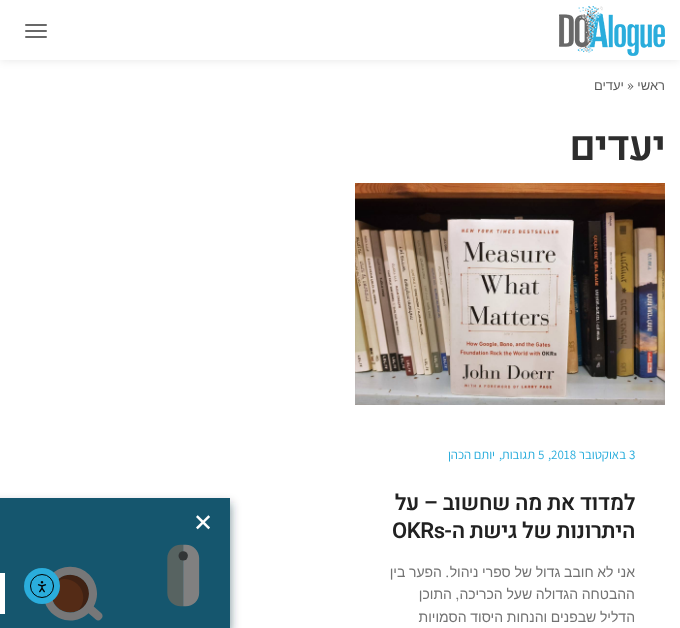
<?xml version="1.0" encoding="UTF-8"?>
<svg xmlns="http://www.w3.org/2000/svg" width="680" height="628">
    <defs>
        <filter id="blur1" x="-50%" y="-200%" width="200%" height="500%"><feGaussianBlur stdDeviation="5"/></filter>
    </defs>
    <rect width="100%" height="100%" fill="#FFFFFF"/>
    <rect x="0" y="0" width="680" height="60" fill="#000000" fill-opacity="0.1" filter="url(#blur1)"/>
    <rect x="0" y="0" width="680" height="60" fill="#FFFFFF"/>
    <image x="559" y="6" width="106" height="50" href="img_01.png"/>
    <rect x="25" y="24" width="22" height="2" rx="1" fill="#686868"/>
    <rect x="25" y="30" width="22" height="2" rx="1" fill="#686868"/>
    <rect x="25" y="36" width="22" height="2" rx="1" fill="#686868"/>
    <text x="665" y="90" font-family="Liberation Sans" font-size="13" direction="rtl" fill="#5B5B5B">ראשי</text>
    <text x="627" y="90" font-family="Lora" font-size="13" fill="#5B5B5B">»</text>
    <text x="624" y="90" font-family="Liberation Sans" font-size="13" direction="rtl" fill="#5B5B5B">יעדים</text>
    <text x="665" y="160" font-family="Heebo" font-size="41" font-weight="600" letter-spacing="-1" direction="rtl" fill="#2D2D2D">יעדים</text>
    <image x="355" y="183" width="310" height="222" href="img_02.png"/>
    <text x="629" y="459" font-family="Assistant" font-size="13" fill="#2AADDC">3</text>
    <text x="626" y="459" font-family="Assistant" font-size="13" direction="rtl" fill="#2AADDC">באוקטובר</text>
    <text x="551" y="459" font-family="Assistant" font-size="13" fill="#2AADDC">2018</text>
    <text x="548" y="459" font-family="Assistant" font-size="13" fill="#2AADDC">,</text>
    <text x="538" y="459" font-family="Assistant" font-size="13" fill="#2AADDC">5</text>
    <text x="535" y="459" font-family="Assistant" font-size="13" direction="rtl" fill="#2AADDC">תגובות</text>
    <text x="499" y="459" font-family="Assistant" font-size="13" fill="#2AADDC">,</text>
    <text x="495" y="459" font-family="Assistant" font-size="13" direction="rtl" fill="#2AADDC">יותם הכהן</text>
    <text font-family="Heebo" font-size="22" font-weight="600" letter-spacing="-0.4" direction="rtl" fill="#212121">
        <tspan x="635" y="510">למדוד את מה שחשוב – על</tspan>
        <tspan x="635" y="538">היתרונות של גישת ה-</tspan>
    </text>
    <text x="392" y="538" font-family="Heebo" font-size="22" font-weight="600" letter-spacing="-0.4" fill="#212121">OKRs</text>
    <text x="635" y="577" word-spacing="-0.25" font-family="Liberation Sans" font-size="14" direction="rtl" fill="#727272">אני לא חובב גדול של ספרי ניהול</text>
    <text x="449" y="577" font-family="Lora" font-size="14" direction="rtl" fill="#727272">.</text>
    <text x="442" y="577" word-spacing="-0.25" font-family="Liberation Sans" font-size="14" direction="rtl" fill="#727272">הפער בין</text>
    <text x="635" y="599" word-spacing="-0.25" font-family="Liberation Sans" font-size="14" direction="rtl" fill="#727272">ההבטחה הגדולה שעל הכריכה</text>
    <text x="459" y="599" font-family="Lora" font-size="14" direction="rtl" fill="#727272">,</text>
    <text x="452" y="599" font-family="Liberation Sans" font-size="14" direction="rtl" fill="#727272">התוכן</text>
    <text x="635" y="622" word-spacing="-0.25" font-family="Liberation Sans" font-size="14" direction="rtl" fill="#727272">הדליל שבפנים והנחות היסוד הסמויות</text>
    <rect x="-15" y="503" width="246" height="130" fill="#052C3A" fill-opacity="0.46" filter="url(#blur1)"/>
    <image x="0" y="498" width="230" height="130" href="img_03.png"/>
    <text x="193" y="531" font-family="DejaVu Sans" font-size="24" fill="#FFFFFF">✕</text>
    <rect x="0" y="573" width="5" height="41" fill="#FFFFFF"/>
    <circle cx="42" cy="586" r="18" fill="#2AADDC"/>
    <circle cx="42" cy="586" r="11.5" fill="none" stroke="#000000"/>
    <image x="37" y="581" width="10" height="12" href="img_04.png"/>
</svg>
